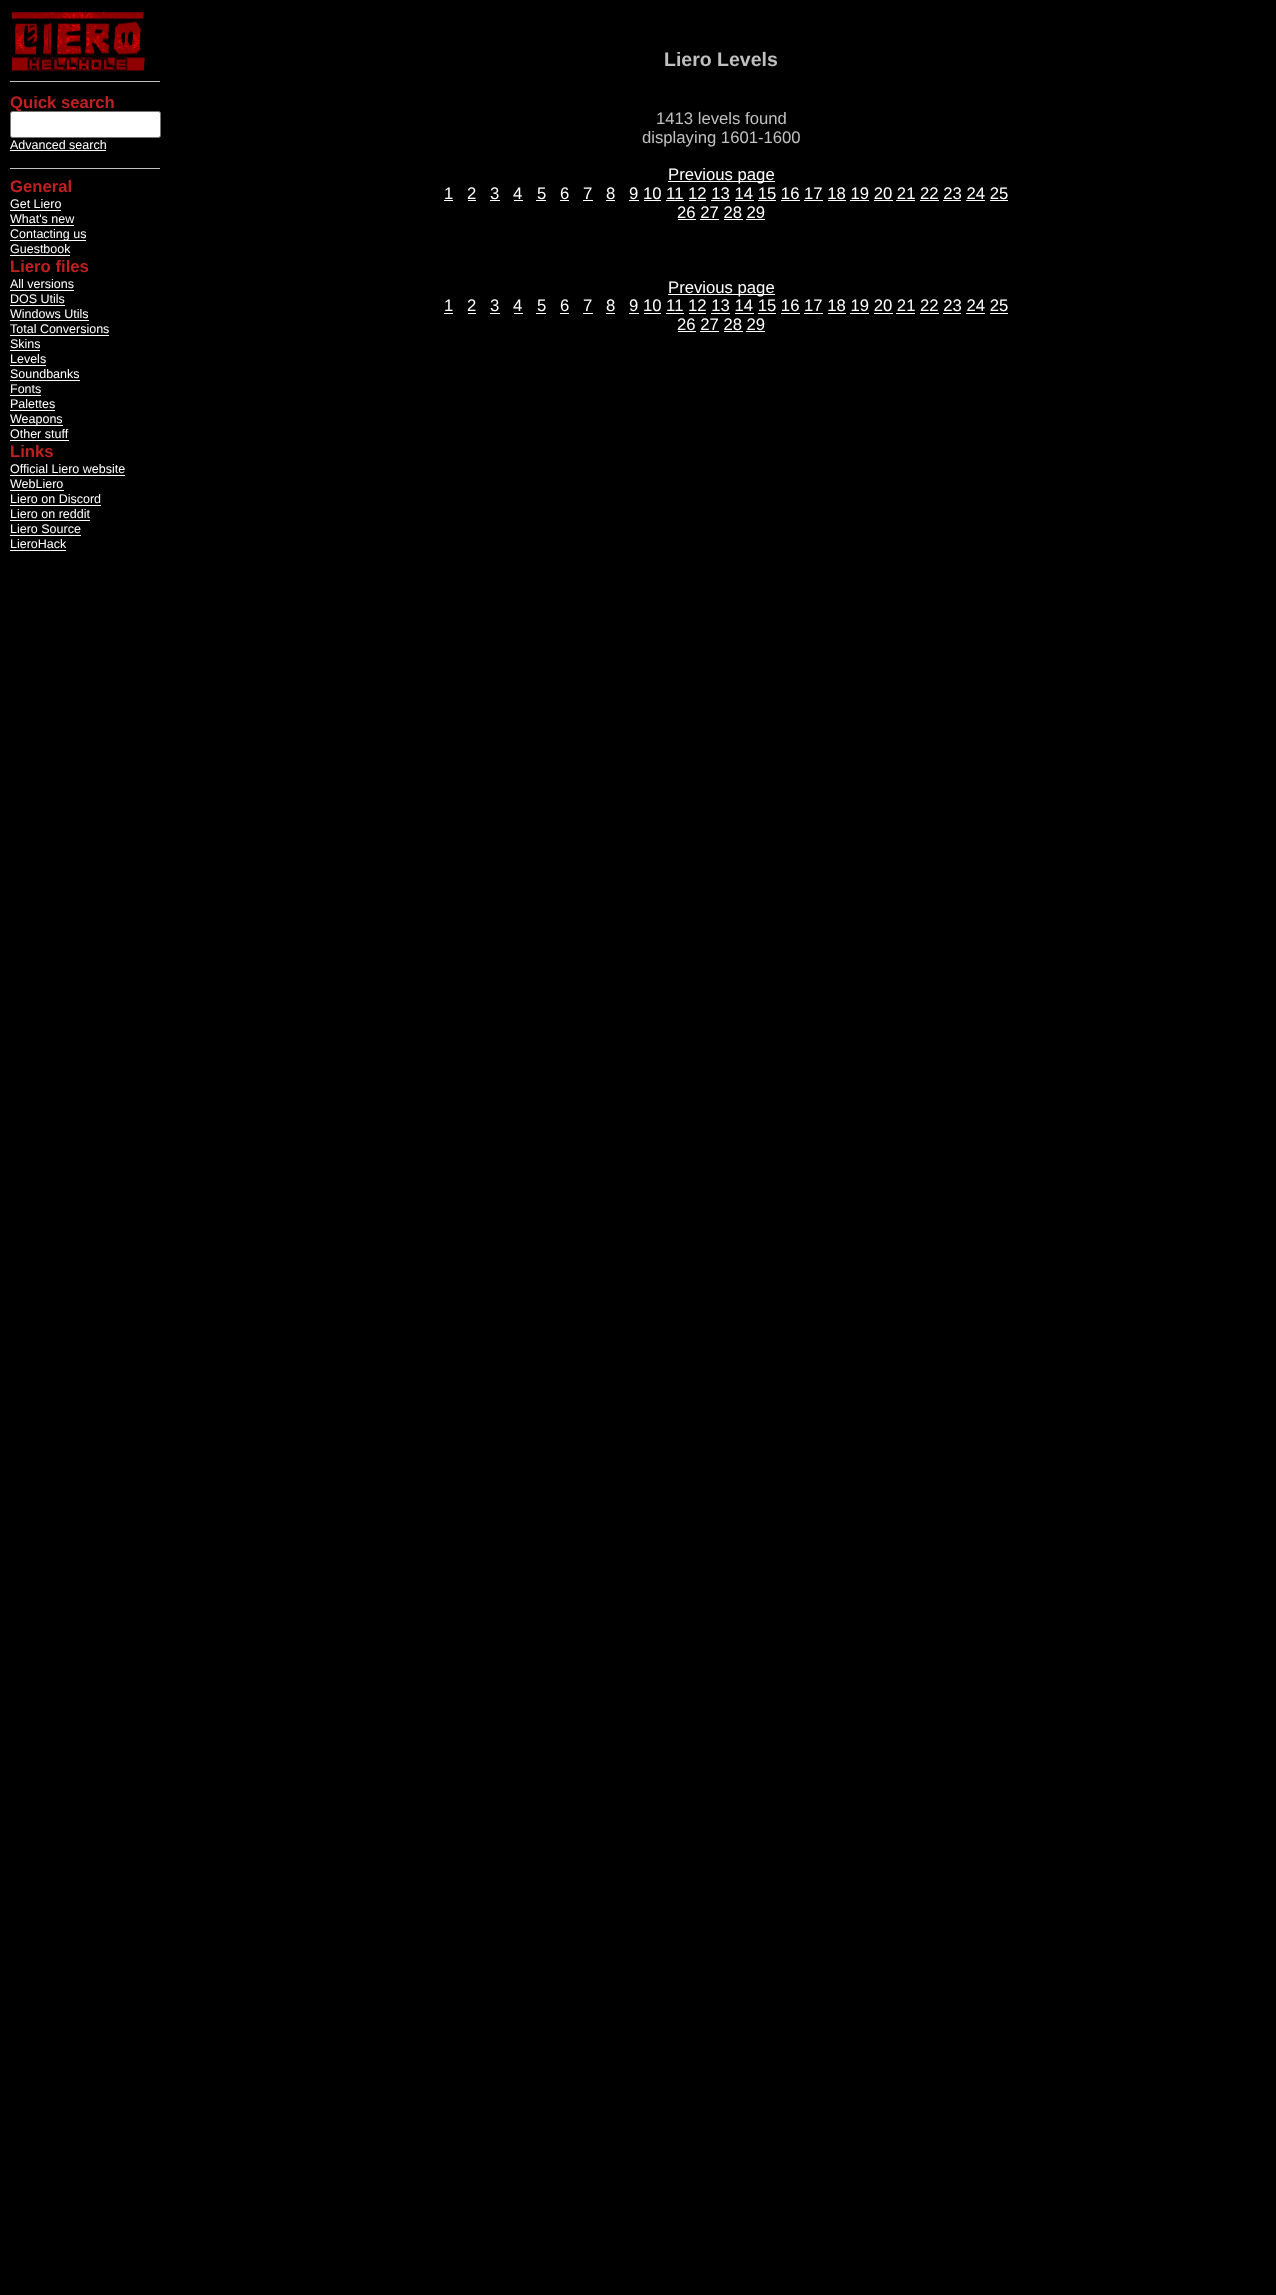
<?xml version="1.0" encoding="UTF-8"?>
<svg xmlns="http://www.w3.org/2000/svg" width="1276" height="2295">
    <rect width="100%" height="100%" fill="#000000"/>
    <image x="11" y="12" width="134" height="60" href="img_01.png"/>
    <rect x="10" y="81" width="150" height="1" fill="#C0C0C0"/>
    <text x="10" y="108" font-family="Liberation Sans" font-size="16.7" font-weight="700" fill="#C12020">Quick search</text>
    <rect x="10.5" y="111.5" width="150" height="26" rx="2" fill="#FFFFFF" stroke="#767676"/>
    <text x="10" y="149" font-family="Liberation Sans" font-size="12.5" fill="#FFFFFF">Advanced search</text>
    <rect x="10" y="150" width="96" height="1" fill="#FFFFFF"/>
    <rect x="10" y="168" width="150" height="1" fill="#C0C0C0"/>
    <text x="10" y="192" font-family="Liberation Sans" font-size="16.7" font-weight="700" fill="#C12020">General</text>
    <text x="10" y="208" font-family="Liberation Sans" font-size="12.5" fill="#FFFFFF">Get Liero</text>
    <rect x="10" y="210" width="51" height="1" fill="#FFFFFF"/>
    <text x="10" y="223" font-family="Liberation Sans" font-size="12.5" fill="#FFFFFF">What's new</text>
    <rect x="10" y="225" width="64" height="1" fill="#FFFFFF"/>
    <rect x="10" y="240" width="76" height="1" fill="#FFFFFF"/>
    <text font-family="Liberation Sans" font-size="12.5" fill="#FFFFFF">
        <tspan x="10" y="238">Contacting us</tspan>
        <tspan x="10" y="253">Guestbook</tspan>
    </text>
    <rect x="10" y="255" width="60" height="1" fill="#FFFFFF"/>
    <text x="10" y="272" font-family="Liberation Sans" font-size="16.7" font-weight="700" fill="#C12020">Liero files</text>
    <text x="10" y="288" font-family="Liberation Sans" font-size="12.5" fill="#FFFFFF">All versions</text>
    <rect x="10" y="290" width="64" height="1" fill="#FFFFFF"/>
    <text x="10" y="303" font-family="Liberation Sans" font-size="12.5" fill="#FFFFFF">DOS Utils</text>
    <rect x="10" y="305" width="55" height="1" fill="#FFFFFF"/>
    <text x="10" y="318" font-family="Liberation Sans" font-size="12.5" fill="#FFFFFF">Windows Utils</text>
    <rect x="10" y="320" width="79" height="1" fill="#FFFFFF"/>
    <text x="10" y="333" font-family="Liberation Sans" font-size="12.5" fill="#FFFFFF">Total Conversions</text>
    <rect x="10" y="335" width="99" height="1" fill="#FFFFFF"/>
    <text x="10" y="348" font-family="Liberation Sans" font-size="12.5" fill="#FFFFFF">Skins</text>
    <rect x="10" y="350" width="30" height="1" fill="#FFFFFF"/>
    <text x="10" y="363" font-family="Liberation Sans" font-size="12.5" fill="#FFFFFF">Levels</text>
    <rect x="10" y="365" width="36" height="1" fill="#FFFFFF"/>
    <text x="10" y="378" font-family="Liberation Sans" font-size="12.5" fill="#FFFFFF">Soundbanks</text>
    <rect x="10" y="380" width="70" height="1" fill="#FFFFFF"/>
    <text x="10" y="393" font-family="Liberation Sans" font-size="12.5" fill="#FFFFFF">Fonts</text>
    <rect x="10" y="395" width="31" height="1" fill="#FFFFFF"/>
    <text x="10" y="408" font-family="Liberation Sans" font-size="12.5" fill="#FFFFFF">Palettes</text>
    <rect x="10" y="410" width="45" height="1" fill="#FFFFFF"/>
    <rect x="10" y="425" width="53" height="1" fill="#FFFFFF"/>
    <text font-family="Liberation Sans" font-size="12.5" fill="#FFFFFF">
        <tspan x="10" y="423">Weapons</tspan>
        <tspan x="10" y="438">Other stuff</tspan>
    </text>
    <rect x="10" y="440" width="59" height="1" fill="#FFFFFF"/>
    <text x="10" y="457" font-family="Liberation Sans" font-size="16.7" font-weight="700" fill="#C12020">Links</text>
    <text x="10" y="473" font-family="Liberation Sans" font-size="12.5" fill="#FFFFFF">Official Liero website</text>
    <rect x="10" y="475" width="115" height="1" fill="#FFFFFF"/>
    <text x="10" y="488" font-family="Liberation Sans" font-size="12.5" fill="#FFFFFF">WebLiero</text>
    <rect x="10" y="490" width="54" height="1" fill="#FFFFFF"/>
    <text x="10" y="503" font-family="Liberation Sans" font-size="12.5" fill="#FFFFFF">Liero on Discord</text>
    <rect x="10" y="505" width="91" height="1" fill="#FFFFFF"/>
    <text x="10" y="518" font-family="Liberation Sans" font-size="12.5" fill="#FFFFFF">Liero on reddit</text>
    <rect x="10" y="520" width="80" height="1" fill="#FFFFFF"/>
    <text x="10" y="533" font-family="Liberation Sans" font-size="12.5" fill="#FFFFFF">Liero Source</text>
    <rect x="10" y="535" width="71" height="1" fill="#FFFFFF"/>
    <text x="10" y="548" font-family="Liberation Sans" font-size="12.5" fill="#FFFFFF">LieroHack</text>
    <rect x="10" y="550" width="56" height="1" fill="#FFFFFF"/>
    <text x="664" y="66" font-family="Liberation Sans" font-size="19.5" font-weight="700" fill="#C0C0C0">Liero Levels</text>
    <text x="656" y="124" font-family="Liberation Sans" font-size="16.7" fill="#C0C0C0">1413 levels found</text>
    <text x="642" y="143" font-family="Liberation Sans" font-size="16.7" fill="#C0C0C0">displaying 1601-1600</text>
    <rect x="668" y="181" width="107" height="1" fill="#FFFFFF"/>
    <text x="668" y="180" font-family="Liberation Sans" font-size="16.7" fill="#FFFFFF">Previous page</text>
    <text x="444" y="199" font-family="Liberation Sans" font-size="16.7" fill="#FFFFFF">1</text>
    <rect x="444" y="200" width="9" height="1" fill="#FFFFFF"/>
    <text x="467" y="199" font-family="Liberation Sans" font-size="16.7" fill="#FFFFFF">2</text>
    <rect x="468" y="200" width="8" height="1" fill="#FFFFFF"/>
    <text x="490" y="199" font-family="Liberation Sans" font-size="16.7" fill="#FFFFFF">3</text>
    <rect x="490" y="200" width="10" height="1" fill="#FFFFFF"/>
    <text x="513" y="199" font-family="Liberation Sans" font-size="16.7" fill="#FFFFFF">4</text>
    <rect x="514" y="200" width="9" height="1" fill="#FFFFFF"/>
    <text x="537" y="199" font-family="Liberation Sans" font-size="16.7" fill="#FFFFFF">5</text>
    <rect x="536" y="200" width="10" height="1" fill="#FFFFFF"/>
    <text x="560" y="199" font-family="Liberation Sans" font-size="16.7" fill="#FFFFFF">6</text>
    <rect x="560" y="200" width="9" height="1" fill="#FFFFFF"/>
    <text x="583" y="199" font-family="Liberation Sans" font-size="16.7" fill="#FFFFFF">7</text>
    <rect x="583" y="200" width="10" height="1" fill="#FFFFFF"/>
    <text x="606" y="199" font-family="Liberation Sans" font-size="16.7" fill="#FFFFFF">8</text>
    <rect x="606" y="200" width="9" height="1" fill="#FFFFFF"/>
    <text x="629" y="199" font-family="Liberation Sans" font-size="16.7" fill="#FFFFFF">9 10 11 12 13 14 15 16 17 18 19 20 21 22 23 24 25</text>
    <rect x="629" y="200" width="10" height="1" fill="#FFFFFF"/>
    <rect x="644" y="200" width="17" height="1" fill="#FFFFFF"/>
    <rect x="666" y="200" width="18" height="1" fill="#FFFFFF"/>
    <rect x="689" y="200" width="17" height="1" fill="#FFFFFF"/>
    <rect x="711" y="200" width="19" height="1" fill="#FFFFFF"/>
    <rect x="735" y="200" width="19" height="1" fill="#FFFFFF"/>
    <rect x="758" y="200" width="18" height="1" fill="#FFFFFF"/>
    <rect x="781" y="200" width="19" height="1" fill="#FFFFFF"/>
    <rect x="804" y="200" width="19" height="1" fill="#FFFFFF"/>
    <rect x="828" y="200" width="18" height="1" fill="#FFFFFF"/>
    <rect x="850" y="200" width="19" height="1" fill="#FFFFFF"/>
    <rect x="874" y="200" width="19" height="1" fill="#FFFFFF"/>
    <rect x="896" y="200" width="19" height="1" fill="#FFFFFF"/>
    <rect x="920" y="200" width="19" height="1" fill="#FFFFFF"/>
    <rect x="943" y="200" width="18" height="1" fill="#FFFFFF"/>
    <rect x="966" y="200" width="19" height="1" fill="#FFFFFF"/>
    <rect x="990" y="200" width="18" height="1" fill="#FFFFFF"/>
    <text x="677" y="218" font-family="Liberation Sans" font-size="16.7" fill="#FFFFFF">26 27 28 29</text>
    <rect x="678" y="219" width="18" height="1" fill="#FFFFFF"/>
    <rect x="700" y="219" width="19" height="1" fill="#FFFFFF"/>
    <rect x="724" y="219" width="19" height="1" fill="#FFFFFF"/>
    <rect x="746" y="219" width="19" height="1" fill="#FFFFFF"/>
    <rect x="668" y="294" width="107" height="1" fill="#FFFFFF"/>
    <text x="668" y="293" font-family="Liberation Sans" font-size="16.7" fill="#FFFFFF">Previous page</text>
    <text x="444" y="311" font-family="Liberation Sans" font-size="16.7" fill="#FFFFFF">1</text>
    <rect x="444" y="313" width="9" height="1" fill="#FFFFFF"/>
    <text x="467" y="311" font-family="Liberation Sans" font-size="16.7" fill="#FFFFFF">2</text>
    <rect x="468" y="313" width="8" height="1" fill="#FFFFFF"/>
    <text x="490" y="311" font-family="Liberation Sans" font-size="16.7" fill="#FFFFFF">3</text>
    <rect x="490" y="313" width="10" height="1" fill="#FFFFFF"/>
    <text x="513" y="311" font-family="Liberation Sans" font-size="16.7" fill="#FFFFFF">4</text>
    <rect x="514" y="313" width="9" height="1" fill="#FFFFFF"/>
    <text x="537" y="311" font-family="Liberation Sans" font-size="16.7" fill="#FFFFFF">5</text>
    <rect x="536" y="313" width="10" height="1" fill="#FFFFFF"/>
    <text x="560" y="311" font-family="Liberation Sans" font-size="16.7" fill="#FFFFFF">6</text>
    <rect x="560" y="313" width="9" height="1" fill="#FFFFFF"/>
    <text x="583" y="311" font-family="Liberation Sans" font-size="16.7" fill="#FFFFFF">7</text>
    <rect x="583" y="313" width="10" height="1" fill="#FFFFFF"/>
    <text x="606" y="311" font-family="Liberation Sans" font-size="16.7" fill="#FFFFFF">8</text>
    <rect x="606" y="313" width="9" height="1" fill="#FFFFFF"/>
    <text x="629" y="311" font-family="Liberation Sans" font-size="16.7" fill="#FFFFFF">9 10 11 12 13 14 15 16 17 18 19 20 21 22 23 24 25</text>
    <rect x="629" y="313" width="10" height="1" fill="#FFFFFF"/>
    <rect x="644" y="313" width="17" height="1" fill="#FFFFFF"/>
    <rect x="666" y="313" width="18" height="1" fill="#FFFFFF"/>
    <rect x="689" y="313" width="17" height="1" fill="#FFFFFF"/>
    <rect x="711" y="313" width="19" height="1" fill="#FFFFFF"/>
    <rect x="735" y="313" width="19" height="1" fill="#FFFFFF"/>
    <rect x="758" y="313" width="18" height="1" fill="#FFFFFF"/>
    <rect x="781" y="313" width="19" height="1" fill="#FFFFFF"/>
    <rect x="804" y="313" width="19" height="1" fill="#FFFFFF"/>
    <rect x="828" y="313" width="18" height="1" fill="#FFFFFF"/>
    <rect x="850" y="313" width="19" height="1" fill="#FFFFFF"/>
    <rect x="874" y="313" width="19" height="1" fill="#FFFFFF"/>
    <rect x="896" y="313" width="19" height="1" fill="#FFFFFF"/>
    <rect x="920" y="313" width="19" height="1" fill="#FFFFFF"/>
    <rect x="943" y="313" width="18" height="1" fill="#FFFFFF"/>
    <rect x="966" y="313" width="19" height="1" fill="#FFFFFF"/>
    <rect x="990" y="313" width="18" height="1" fill="#FFFFFF"/>
    <text x="677" y="330" font-family="Liberation Sans" font-size="16.7" fill="#FFFFFF">26 27 28 29</text>
    <rect x="678" y="331" width="18" height="1" fill="#FFFFFF"/>
    <rect x="700" y="331" width="19" height="1" fill="#FFFFFF"/>
    <rect x="724" y="331" width="19" height="1" fill="#FFFFFF"/>
    <rect x="746" y="331" width="19" height="1" fill="#FFFFFF"/>
</svg>
